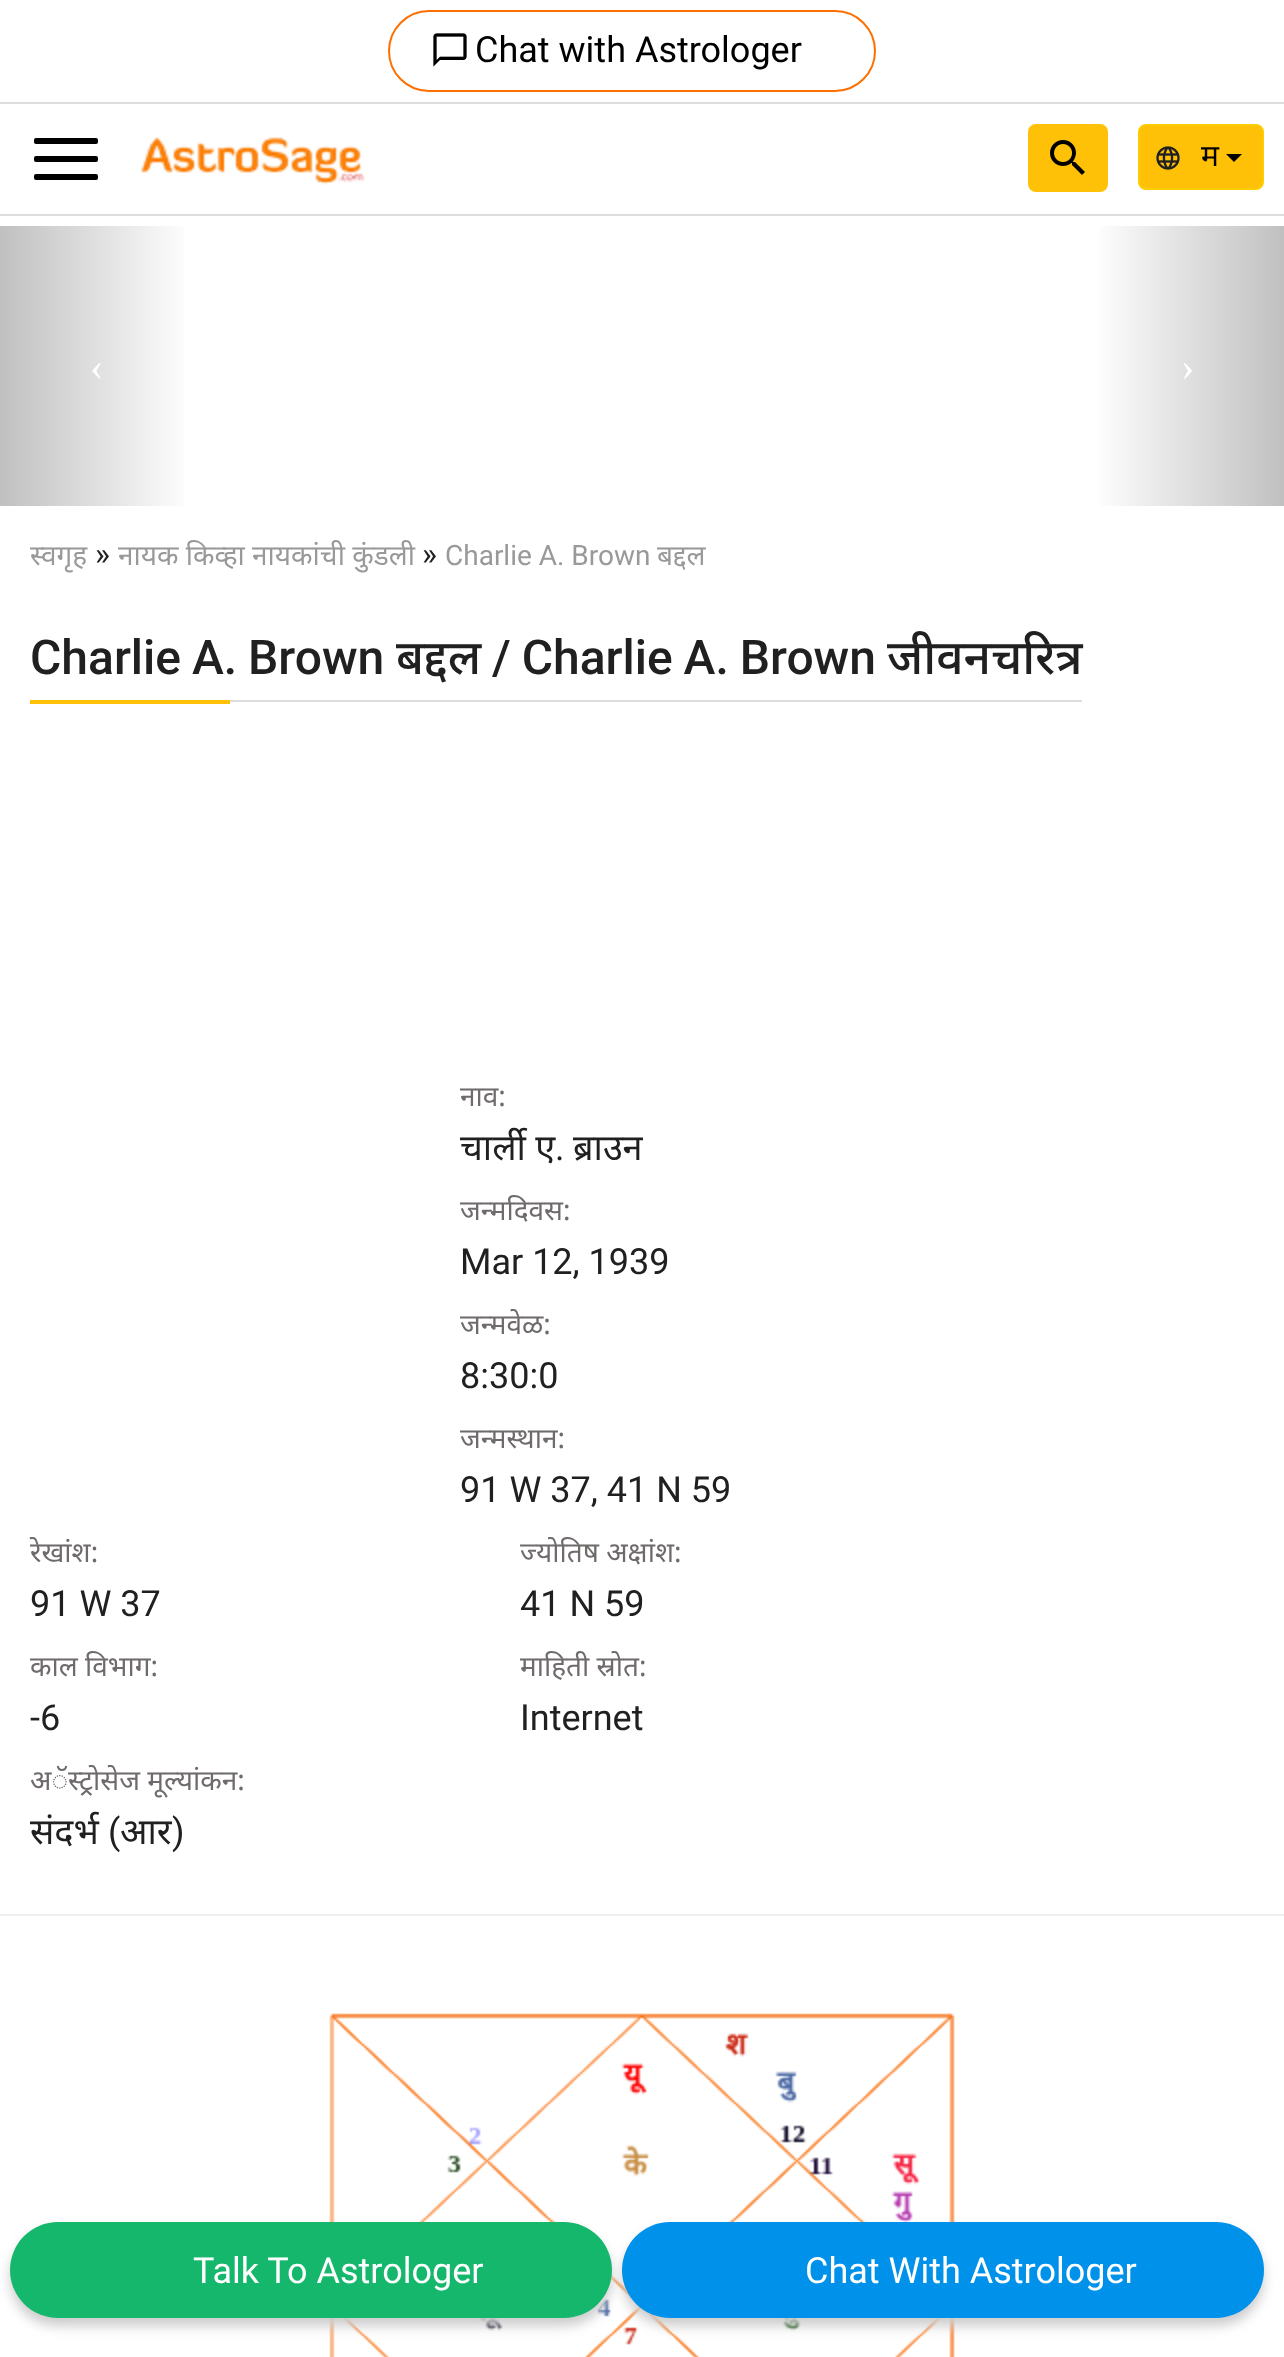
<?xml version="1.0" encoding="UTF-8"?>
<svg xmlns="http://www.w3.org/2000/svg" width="1284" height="2357">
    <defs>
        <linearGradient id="g1" gradientUnits="userSpaceOnUse" x1="0" y1="366" x2="192" y2="366"><stop offset="0" stop-color="#C0C0C0"/><stop offset="1" stop-color="#FFFFFF"/></linearGradient>
        <linearGradient id="g2" gradientUnits="userSpaceOnUse" x1="1092" y1="366" x2="1284" y2="366"><stop offset="0" stop-color="#FFFFFF"/><stop offset="1" stop-color="#C0C0C0"/></linearGradient>
        <filter id="blur1" x="-50%" y="-200%" width="200%" height="500%"><feGaussianBlur stdDeviation="6"/></filter>
    </defs>
    <rect width="100%" height="100%" fill="#FFFFFF"/>
    <rect x="389" y="11" width="486" height="80" rx="40" fill="none" stroke="#FF6F00" stroke-width="2"/>
    <image x="433" y="33" width="34" height="34" href="img_01.png"/>
    <text x="475" y="62" font-family="Roboto" font-size="36" fill="#000000">Chat with Astrologer</text>
    <rect x="0" y="102" width="1284" height="2" fill="#DDDDDD"/>
    <rect x="0" y="214" width="1284" height="2" fill="#DDDDDD"/>
    <rect x="34" y="138" width="64" height="6" rx="2" fill="#000000"/>
    <rect x="34" y="156" width="64" height="6" rx="2" fill="#000000"/>
    <rect x="34" y="174" width="64" height="6" rx="2" fill="#000000"/>
    <image x="140" y="137" width="225" height="48" href="img_02.png"/>
    <rect x="1028" y="124" width="80" height="68" rx="8" fill="#FFC107"/>
    <image x="1050" y="140" width="35" height="35" href="img_03.png"/>
    <rect x="1139" y="125" width="124" height="64" rx="7" fill="#FFC107" stroke="#FFCC00" stroke-width="2"/>
    <image x="1156" y="146" width="24" height="24" href="img_04.png"/>
    <text x="1201" y="166" font-family="Noto Sans" font-size="30" fill="#000000">म</text>
    <path d="M 1226 154 H 1242 L 1234 162 Z" fill="#000000"/>
    <rect x="0" y="226" width="184" height="280" fill="url(#g1)"/>
    <text x="90" y="380" font-family="Liberation Serif" font-size="40" fill="#FFFFFF">‹</text>
    <rect x="1100" y="226" width="184" height="280" fill="url(#g2)"/>
    <text x="1181" y="380" font-family="Liberation Serif" font-size="40" fill="#FFFFFF">›</text>
    <text x="30" y="565" font-family="Noto Sans" font-size="28" fill="#999999">स्वगृह</text>
    <text x="95" y="565" font-family="Roboto" font-size="32" fill="#202020">»</text>
    <text x="118" y="565" font-family="Noto Sans" font-size="28" fill="#999999">नायक किव्हा नायकांची कुंडली</text>
    <text x="422" y="565" font-family="Roboto" font-size="32" fill="#202020">»</text>
    <text x="445" y="565" font-family="Roboto" font-size="28" fill="#999999">Charlie A. Brown</text>
    <text x="657" y="565" font-family="Noto Sans" font-size="28" fill="#999999">बद्दल</text>
    <rect x="230" y="700" width="852" height="2" fill="#DDDDDD"/>
    <text x="30" y="674" word-spacing="-1" font-family="Roboto" font-size="48" font-weight="500" fill="#202020">Charlie A. Brown</text>
    <text x="396" y="674" font-family="Noto Sans" font-size="48" font-weight="500" fill="#202020">बद्दल</text>
    <text x="492" y="674" word-spacing="-1" font-family="Roboto" font-size="48" font-weight="500" fill="#202020">/ Charlie A. Brown</text>
    <text x="887" y="674" font-family="Noto Sans" font-size="48" font-weight="500" fill="#202020">जीवनचरित्र</text>
    <rect x="30" y="700" width="200" height="4" fill="#FFC107"/>
    <text x="460" y="1106" font-family="Noto Sans" font-size="28" fill="#6F6B6B">नाव:</text>
    <text x="460" y="1160" font-family="Noto Sans" font-size="36" fill="#202020">चार्ली ए</text>
    <text x="555" y="1160" font-family="Roboto" font-size="36" fill="#202020">.</text>
    <text x="573" y="1160" font-family="Noto Sans" font-size="36" fill="#202020">ब्राउन</text>
    <text x="460" y="1220" font-family="Noto Sans" font-size="28" fill="#6F6B6B">जन्मदिवस:</text>
    <text x="460" y="1274" font-family="Roboto" font-size="36" fill="#202020">Mar 12, 1939</text>
    <text x="460" y="1334" font-family="Noto Sans" font-size="28" fill="#6F6B6B">जन्मवेळ:</text>
    <text x="460" y="1388" font-family="Roboto" font-size="36" fill="#202020">8:30:0</text>
    <text x="460" y="1448" font-family="Noto Sans" font-size="28" fill="#6F6B6B">जन्मस्थान:</text>
    <text x="460" y="1502" font-family="Roboto" font-size="36" fill="#202020">91 W 37, 41 N 59</text>
    <text x="30" y="1562" font-family="Noto Sans" font-size="28" fill="#6F6B6B">रेखांश:</text>
    <text x="30" y="1616" font-family="Roboto" font-size="36" fill="#202020">91 W 37</text>
    <text x="520" y="1562" font-family="Noto Sans" font-size="28" fill="#6F6B6B">ज्योतिष अक्षांश:</text>
    <text x="520" y="1616" font-family="Roboto" font-size="36" fill="#202020">41 N 59</text>
    <text x="30" y="1676" font-family="Noto Sans" font-size="28" fill="#6F6B6B">काल विभाग:</text>
    <text x="30" y="1730" font-family="Roboto" font-size="36" fill="#202020">-6</text>
    <text x="520" y="1676" font-family="Noto Sans" font-size="28" fill="#6F6B6B">माहिती स्रोत:</text>
    <text x="520" y="1730" font-family="Roboto" font-size="36" fill="#202020">Internet</text>
    <text x="30" y="1790" font-family="Noto Sans" font-size="28" fill="#6F6B6B">अॅस्ट्रोसेज मूल्यांकन:</text>
    <text x="30" y="1844" font-family="Noto Sans" font-size="36" fill="#202020">संदर्भ</text>
    <text x="108" y="1844" font-family="Roboto" font-size="36" fill="#202020">(</text>
    <text x="120" y="1844" font-family="Noto Sans" font-size="36" fill="#202020">आर</text>
    <text x="172" y="1844" font-family="Roboto" font-size="36" fill="#202020">)</text>
    <rect x="0" y="1914" width="1284" height="2" fill="#EEEEEE"/>
    <image x="329" y="2013" width="626" height="344" href="img_05.png"/>
    <rect x="10" y="2230" width="602" height="96" rx="48" fill="#CCCCCC" filter="url(#blur1)"/>
    <rect x="10" y="2222" width="602" height="96" rx="48" fill="#15B76C"/>
    <text x="193" y="2283" font-family="Roboto" font-size="36" fill="#FFFFFF">Talk To Astrologer</text>
    <rect x="622" y="2230" width="642" height="96" rx="48" fill="#CCCCCC" filter="url(#blur1)"/>
    <rect x="622" y="2222" width="642" height="96" rx="48" fill="#0091EA"/>
    <text x="805" y="2283" font-family="Roboto" font-size="36" fill="#FFFFFF">Chat With Astrologer</text>
</svg>
